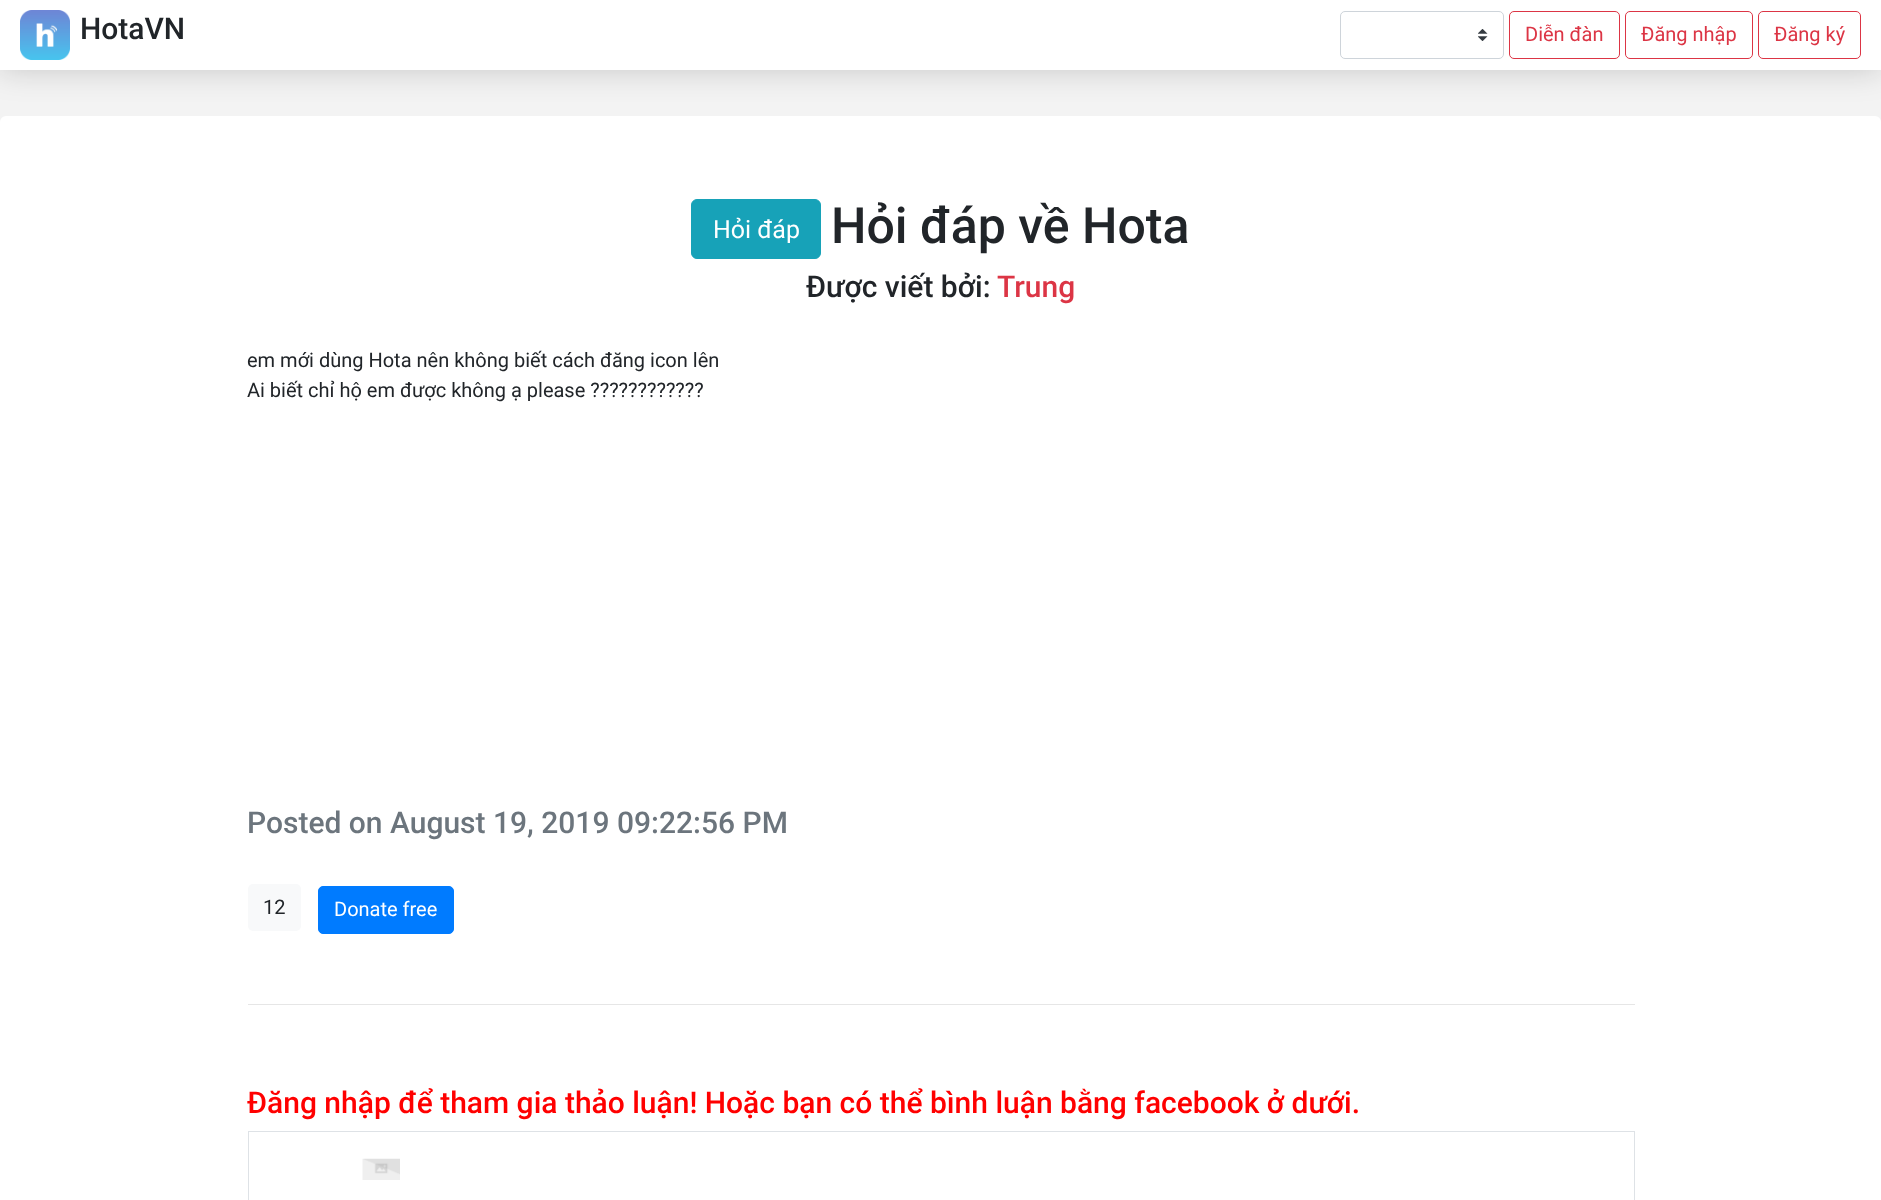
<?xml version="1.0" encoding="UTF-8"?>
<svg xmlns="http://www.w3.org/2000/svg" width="1881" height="1200">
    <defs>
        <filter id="blur1" x="-50%" y="-200%" width="200%" height="500%"><feGaussianBlur stdDeviation="15.5"/></filter>
    </defs>
    <rect width="100%" height="100%" fill="#F3F3F3"/>
    <rect x="0" y="116" width="1881" height="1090" rx="6" fill="#FFFFFF"/>
    <rect x="0" y="0" width="1881" height="70" fill="#000000" fill-opacity="0.19" filter="url(#blur1)"/>
    <rect x="0" y="0" width="1881" height="70" fill="#FFFFFF"/>
    <image x="20" y="10" width="50" height="50" href="img_01.png"/>
    <text x="80" y="39" font-family="Roboto" font-size="30" font-weight="500" fill="#212529">HotaVN</text>
    <image x="1478" y="29" width="10" height="12" href="img_02.png"/>
    <rect x="1340.5" y="11.5" width="163" height="47" rx="4.5" fill="none" stroke="#CED4DA"/>
    <rect x="1509.5" y="11.5" width="110" height="47" rx="4.5" fill="none" stroke="#DC3545"/>
    <text x="1525" y="41" font-family="Roboto" font-size="20" fill="#DC3545">Diễn đàn</text>
    <rect x="1625.5" y="11.5" width="127" height="47" rx="4.5" fill="none" stroke="#DC3545"/>
    <text x="1641" y="41" font-family="Roboto" font-size="20" fill="#DC3545">Đăng nhập</text>
    <rect x="1758.5" y="11.5" width="102" height="47" rx="4.5" fill="none" stroke="#DC3545"/>
    <text x="1774" y="41" font-family="Roboto" font-size="20" fill="#DC3545">Đăng ký</text>
    <rect x="691.5" y="199.5" width="129" height="59" rx="5.5" fill="#17A2B8" stroke="#17A2B8"/>
    <text x="713" y="238" font-family="Roboto" font-size="25" fill="#FFFFFF">Hỏi đáp</text>
    <text x="831" y="243" font-family="Roboto" font-size="50" font-weight="500" fill="#212529">Hỏi đáp về Hota</text>
    <text x="806" y="297" font-family="Roboto" font-size="30" font-weight="500" fill="#212529">Được viết bởi:</text>
    <text x="997" y="297" font-family="Roboto" font-size="30" font-weight="500" fill="#DC3545">Trung</text>
    <text font-family="Roboto" font-size="20" fill="#212529">
        <tspan x="247" y="367">em mới dùng Hota nên không biết cách đăng icon lên</tspan>
        <tspan x="247" y="397">Ai biết chỉ hộ em được không ạ please ????????????</tspan>
    </text>
    <text x="247" y="833" font-family="Roboto" font-size="30" font-weight="500" fill="#6C757D">Posted on August 19, 2019 09:22:56 PM</text>
    <rect x="248" y="884" width="53" height="47" rx="5" fill="#F8F9FA"/>
    <text x="263" y="914" font-family="Roboto" font-size="20" fill="#212529">12</text>
    <rect x="318.5" y="886.5" width="135" height="47" rx="4.5" fill="#007BFF" stroke="#007BFF"/>
    <text x="334" y="916" font-family="Roboto" font-size="20" fill="#FFFFFF">Donate free</text>
    <rect x="248" y="1004" width="1387" height="1" fill="#E6E6E6"/>
    <text x="247" y="1113" font-family="Roboto" font-size="30" font-weight="500" fill="#FF0000">Đăng nhập để tham gia thảo luận! Hoặc bạn có thể bình luận bằng facebook ở dưới.</text>
    <rect x="248.5" y="1131.5" width="1386" height="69" fill="none" stroke="#DEE2E6"/>
    <image x="362" y="1158" width="38" height="22" href="img_03.png"/>
</svg>
